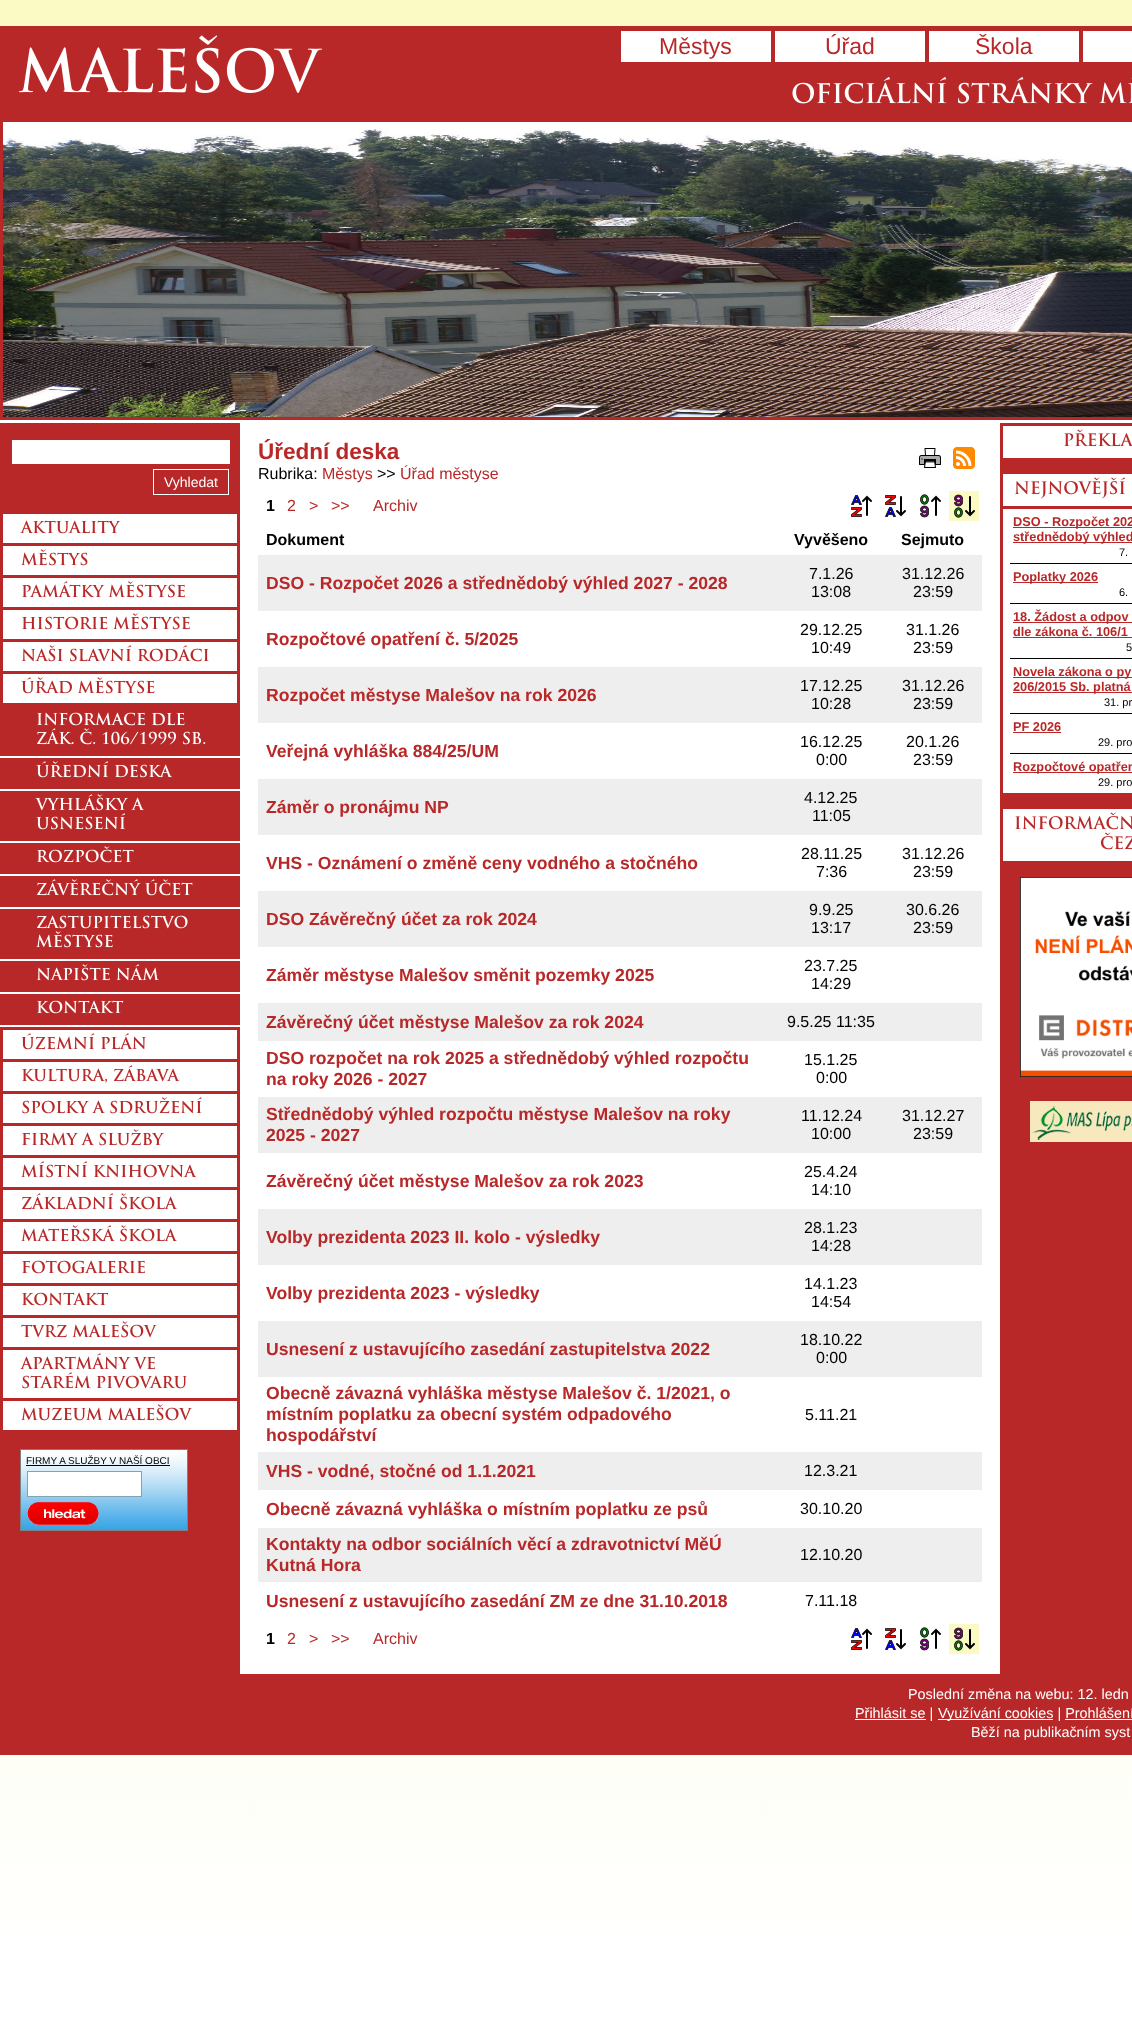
<?xml version="1.0" encoding="UTF-8"?>
<svg xmlns="http://www.w3.org/2000/svg" width="1132" height="2019">
    <defs>
        <linearGradient id="g1" gradientUnits="userSpaceOnUse" x1="566" y1="0" x2="566" y2="2019"><stop offset="0" stop-color="#FBFAC4"/><stop offset="1" stop-color="#FFFFFF"/></linearGradient>
    </defs>
    <rect width="100%" height="100%" fill="#FFFFFF"/>
    <rect x="0" y="0" width="1132" height="1933" fill="url(#g1)"/>
    <rect x="0" y="420" width="1132" height="1254" fill="#FFFFFF"/>
    <rect x="0" y="26" width="1132" height="394" fill="#B82828"/>
    <image x="18" y="35" width="305" height="58" href="img_01.png"/>
    <rect x="621" y="31" width="150" height="31" fill="#FFFFFF"/>
    <text x="659" y="54" font-family="Liberation Sans" font-size="23" fill="#B82828">Městys</text>
    <rect x="775" y="31" width="150" height="31" fill="#FFFFFF"/>
    <text x="825" y="54" font-family="Liberation Sans" font-size="23" fill="#B82828">Úřad</text>
    <rect x="929" y="31" width="150" height="31" fill="#FFFFFF"/>
    <text x="975" y="54" font-family="Liberation Sans" font-size="23" fill="#B82828">Škola</text>
    <rect x="1083" y="31" width="49" height="31" fill="#FFFFFF"/>
    <image x="792" y="77" width="340" height="27" href="img_02.png"/>
    <rect x="3" y="122" width="1129" height="6" fill="#FFFFFF"/>
    <image x="3" y="128" width="1129" height="289" href="img_03.png"/>
    <rect x="0" y="423" width="240" height="1251" fill="#B82828"/>
    <rect x="12" y="440" width="218" height="24" fill="#FFFFFF"/>
    <rect x="153.5" y="469.5" width="75" height="25" fill="none" stroke="#FFFFFF"/>
    <text x="164" y="487" font-family="Liberation Sans" font-size="14" fill="#FFFFFF">Vyhledat</text>
    <rect x="3" y="514" width="234" height="916" fill="#FFFFFF"/>
    <image x="20" y="520" width="101" height="14" href="img_04.png"/>
    <rect x="3" y="543" width="234" height="3" fill="#B82828"/>
    <image x="21" y="549" width="67" height="17" href="img_05.png"/>
    <rect x="3" y="575" width="234" height="3" fill="#B82828"/>
    <image x="22" y="581" width="163" height="17" href="img_06.png"/>
    <rect x="3" y="607" width="234" height="3" fill="#B82828"/>
    <image x="22" y="613" width="168" height="17" href="img_07.png"/>
    <rect x="3" y="639" width="234" height="3" fill="#B82828"/>
    <image x="21" y="645" width="188" height="17" href="img_08.png"/>
    <rect x="3" y="671" width="234" height="3" fill="#B82828"/>
    <image x="21" y="677" width="134" height="17" href="img_09.png"/>
    <rect x="0" y="703" width="240" height="3" fill="#B82828"/>
    <rect x="3" y="706" width="234" height="50" fill="#B82828"/>
    <rect x="0" y="756" width="240" height="2" fill="#FFFFFF"/>
    <image x="37" y="712" width="148" height="14" href="img_10.png"/>
    <image x="37" y="728" width="169" height="17" href="img_11.png"/>
    <rect x="3" y="758" width="234" height="31" fill="#B82828"/>
    <rect x="0" y="789" width="240" height="2" fill="#FFFFFF"/>
    <image x="36" y="761" width="137" height="17" href="img_12.png"/>
    <rect x="3" y="791" width="234" height="50" fill="#B82828"/>
    <rect x="0" y="841" width="240" height="2" fill="#FFFFFF"/>
    <image x="35" y="794" width="110" height="17" href="img_13.png"/>
    <image x="36" y="813" width="90" height="17" href="img_14.png"/>
    <rect x="3" y="843" width="234" height="31" fill="#B82828"/>
    <rect x="0" y="874" width="240" height="2" fill="#FFFFFF"/>
    <image x="37" y="846" width="97" height="17" href="img_15.png"/>
    <rect x="3" y="876" width="234" height="31" fill="#B82828"/>
    <rect x="0" y="907" width="240" height="2" fill="#FFFFFF"/>
    <image x="37" y="879" width="156" height="17" href="img_16.png"/>
    <rect x="3" y="909" width="234" height="50" fill="#B82828"/>
    <rect x="0" y="959" width="240" height="2" fill="#FFFFFF"/>
    <image x="37" y="915" width="151" height="14" href="img_17.png"/>
    <image x="36" y="931" width="77" height="17" href="img_18.png"/>
    <rect x="3" y="961" width="234" height="31" fill="#B82828"/>
    <rect x="0" y="992" width="240" height="2" fill="#FFFFFF"/>
    <image x="36" y="964" width="123" height="17" href="img_19.png"/>
    <rect x="3" y="994" width="234" height="31" fill="#B82828"/>
    <rect x="0" y="1025" width="240" height="2" fill="#FFFFFF"/>
    <image x="37" y="1000" width="87" height="14" href="img_20.png"/>
    <rect x="3" y="1027" width="234" height="3" fill="#B82828"/>
    <image x="21" y="1033" width="125" height="17" href="img_21.png"/>
    <rect x="3" y="1059" width="234" height="3" fill="#B82828"/>
    <image x="22" y="1065" width="158" height="18" href="img_22.png"/>
    <rect x="3" y="1091" width="234" height="3" fill="#B82828"/>
    <image x="22" y="1097" width="180" height="17" href="img_23.png"/>
    <rect x="3" y="1123" width="234" height="3" fill="#B82828"/>
    <image x="22" y="1129" width="142" height="17" href="img_24.png"/>
    <rect x="3" y="1155" width="234" height="3" fill="#B82828"/>
    <image x="21" y="1161" width="176" height="17" href="img_25.png"/>
    <rect x="3" y="1187" width="234" height="3" fill="#B82828"/>
    <image x="22" y="1193" width="156" height="17" href="img_26.png"/>
    <rect x="3" y="1219" width="234" height="3" fill="#B82828"/>
    <image x="21" y="1225" width="157" height="17" href="img_27.png"/>
    <rect x="3" y="1251" width="234" height="3" fill="#B82828"/>
    <image x="22" y="1260" width="123" height="14" href="img_28.png"/>
    <rect x="3" y="1283" width="234" height="3" fill="#B82828"/>
    <image x="22" y="1292" width="87" height="14" href="img_29.png"/>
    <rect x="3" y="1315" width="234" height="3" fill="#B82828"/>
    <image x="21" y="1321" width="136" height="17" href="img_30.png"/>
    <rect x="3" y="1347" width="234" height="3" fill="#B82828"/>
    <image x="20" y="1353" width="135" height="17" href="img_31.png"/>
    <image x="22" y="1372" width="165" height="17" href="img_32.png"/>
    <rect x="3" y="1398" width="234" height="3" fill="#B82828"/>
    <image x="21" y="1404" width="171" height="17" href="img_33.png"/>
    <image x="21" y="1450" width="166" height="80" href="img_34.png"/>
    <rect x="20.5" y="1449.5" width="167" height="81" fill="none" stroke="#808080"/>
    <text x="26" y="1464" font-family="Liberation Sans" font-size="10" fill="#000000">FIRMY A SLUŽBY V NAŠÍ OBCI</text>
    <rect x="26" y="1465" width="144" height="1" fill="#000000"/>
    <rect x="27.5" y="1471.5" width="114" height="25" fill="#FFFFFF" stroke="#82A4B0"/>
    <image x="27" y="1502" width="72" height="23" href="img_35.png"/>
    <text x="258" y="459" font-family="Liberation Sans" font-size="22.5" font-weight="700" fill="#B82828">Úřední deska</text>
    <text x="258" y="479" font-family="Liberation Sans" font-size="16" fill="#000000">Rubrika:</text>
    <text x="322" y="479" font-family="Liberation Sans" font-size="16" fill="#B82828">Městys</text>
    <text x="377" y="479" font-family="Liberation Sans" font-size="16" fill="#000000">&gt;&gt;</text>
    <text x="400" y="479" font-family="Liberation Sans" font-size="16" fill="#B82828">Úřad městyse</text>
    <image x="919" y="448" width="22" height="20" href="img_36.png"/>
    <image x="953" y="447" width="22" height="22" href="img_37.png"/>
    <text x="266" y="511" font-family="Liberation Sans" font-size="16" font-weight="700" fill="#000000">1</text>
    <text x="287" y="511" font-family="Liberation Sans" font-size="16" fill="#B82828">2</text>
    <text x="309" y="511" font-family="Liberation Sans" font-size="16" fill="#B82828">&gt;</text>
    <text x="331" y="511" font-family="Liberation Sans" font-size="16" fill="#B82828">&gt;&gt;</text>
    <text x="373" y="511" font-family="Liberation Sans" font-size="16" fill="#B82828">Archiv</text>
    <image x="851" y="495" width="21" height="22" href="img_38.png"/>
    <image x="885" y="495" width="21" height="22" href="img_39.png"/>
    <image x="920" y="494" width="21" height="24" href="img_40.png"/>
    <rect x="949" y="491" width="30" height="30" fill="#FBFAC4"/>
    <image x="954" y="494" width="21" height="24" href="img_41.png"/>
    <text x="266" y="545" font-family="Liberation Sans" font-size="16" font-weight="700" fill="#000000">Dokument</text>
    <text x="794" y="545" font-family="Liberation Sans" font-size="16" font-weight="700" fill="#000000">Vyvěšeno</text>
    <text x="901" y="545" font-family="Liberation Sans" font-size="16" font-weight="700" fill="#000000">Sejmuto</text>
    <rect x="258" y="555" width="724" height="56" fill="#EEEEEE"/>
    <text x="266" y="589" font-family="Liberation Sans" font-size="17.6" font-weight="700" fill="#B82828">DSO - Rozpočet 2026 a střednědobý výhled 2027 - 2028</text>
    <text x="809" y="579" font-family="Liberation Sans" font-size="16" fill="#000000">7.1.26</text>
    <text x="811" y="597" font-family="Liberation Sans" font-size="16" fill="#000000">13:08</text>
    <text x="902" y="579" font-family="Liberation Sans" font-size="16" fill="#000000">31.12.26</text>
    <text x="913" y="597" font-family="Liberation Sans" font-size="16" fill="#000000">23:59</text>
    <text x="266" y="645" font-family="Liberation Sans" font-size="17.6" font-weight="700" fill="#B82828">Rozpočtové opatření č. 5/2025</text>
    <text x="800" y="635" font-family="Liberation Sans" font-size="16" fill="#000000">29.12.25</text>
    <text x="811" y="653" font-family="Liberation Sans" font-size="16" fill="#000000">10:49</text>
    <text x="906" y="635" font-family="Liberation Sans" font-size="16" fill="#000000">31.1.26</text>
    <text x="913" y="653" font-family="Liberation Sans" font-size="16" fill="#000000">23:59</text>
    <rect x="258" y="667" width="724" height="56" fill="#EEEEEE"/>
    <text x="266" y="701" font-family="Liberation Sans" font-size="17.6" font-weight="700" fill="#B82828">Rozpočet městyse Malešov na rok 2026</text>
    <text x="800" y="691" font-family="Liberation Sans" font-size="16" fill="#000000">17.12.25</text>
    <text x="811" y="709" font-family="Liberation Sans" font-size="16" fill="#000000">10:28</text>
    <text x="902" y="691" font-family="Liberation Sans" font-size="16" fill="#000000">31.12.26</text>
    <text x="913" y="709" font-family="Liberation Sans" font-size="16" fill="#000000">23:59</text>
    <text x="266" y="757" font-family="Liberation Sans" font-size="17.6" font-weight="700" fill="#B82828">Veřejná vyhláška 884/25/UM</text>
    <text x="800" y="747" font-family="Liberation Sans" font-size="16" fill="#000000">16.12.25</text>
    <text x="816" y="765" font-family="Liberation Sans" font-size="16" fill="#000000">0:00</text>
    <text x="906" y="747" font-family="Liberation Sans" font-size="16" fill="#000000">20.1.26</text>
    <text x="913" y="765" font-family="Liberation Sans" font-size="16" fill="#000000">23:59</text>
    <rect x="258" y="779" width="724" height="56" fill="#EEEEEE"/>
    <text x="266" y="813" font-family="Liberation Sans" font-size="17.6" font-weight="700" fill="#B82828">Záměr o pronájmu NP</text>
    <text x="804" y="803" font-family="Liberation Sans" font-size="16" fill="#000000">4.12.25</text>
    <text x="812" y="821" font-family="Liberation Sans" font-size="16" fill="#000000">11:05</text>
    <text x="266" y="869" font-family="Liberation Sans" font-size="17.6" font-weight="700" fill="#B82828">VHS - Oznámení o změně ceny vodného a stočného</text>
    <text x="801" y="859" font-family="Liberation Sans" font-size="16" fill="#000000">28.11.25</text>
    <text x="816" y="877" font-family="Liberation Sans" font-size="16" fill="#000000">7:36</text>
    <text x="902" y="859" font-family="Liberation Sans" font-size="16" fill="#000000">31.12.26</text>
    <text x="913" y="877" font-family="Liberation Sans" font-size="16" fill="#000000">23:59</text>
    <rect x="258" y="891" width="724" height="56" fill="#EEEEEE"/>
    <text x="266" y="925" font-family="Liberation Sans" font-size="17.6" font-weight="700" fill="#B82828">DSO Závěrečný účet za rok 2024</text>
    <text x="809" y="915" font-family="Liberation Sans" font-size="16" fill="#000000">9.9.25</text>
    <text x="811" y="933" font-family="Liberation Sans" font-size="16" fill="#000000">13:17</text>
    <text x="906" y="915" font-family="Liberation Sans" font-size="16" fill="#000000">30.6.26</text>
    <text x="913" y="933" font-family="Liberation Sans" font-size="16" fill="#000000">23:59</text>
    <text x="266" y="981" font-family="Liberation Sans" font-size="17.6" font-weight="700" fill="#B82828">Záměr městyse Malešov směnit pozemky 2025</text>
    <text x="804" y="971" font-family="Liberation Sans" font-size="16" fill="#000000">23.7.25</text>
    <text x="811" y="989" font-family="Liberation Sans" font-size="16" fill="#000000">14:29</text>
    <rect x="258" y="1003" width="724" height="38" fill="#EEEEEE"/>
    <text x="266" y="1028" font-family="Liberation Sans" font-size="17.6" font-weight="700" fill="#B82828">Závěrečný účet městyse Malešov za rok 2024</text>
    <text x="787" y="1027" font-family="Liberation Sans" font-size="16" fill="#000000">9.5.25 11:35</text>
    <text font-family="Liberation Sans" font-size="17.6" font-weight="700" fill="#B82828">
        <tspan x="266" y="1064">DSO rozpočet na rok 2025 a střednědobý výhled rozpočtu</tspan>
        <tspan x="266" y="1085">na roky 2026 - 2027</tspan>
    </text>
    <text x="804" y="1065" font-family="Liberation Sans" font-size="16" fill="#000000">15.1.25</text>
    <text x="816" y="1083" font-family="Liberation Sans" font-size="16" fill="#000000">0:00</text>
    <rect x="258" y="1097" width="724" height="56" fill="#EEEEEE"/>
    <text font-family="Liberation Sans" font-size="17.6" font-weight="700" fill="#B82828">
        <tspan x="266" y="1120">Střednědobý výhled rozpočtu městyse Malešov na roky</tspan>
        <tspan x="266" y="1141">2025 - 2027</tspan>
    </text>
    <text x="801" y="1121" font-family="Liberation Sans" font-size="16" fill="#000000">11.12.24</text>
    <text x="811" y="1139" font-family="Liberation Sans" font-size="16" fill="#000000">10:00</text>
    <text x="902" y="1121" font-family="Liberation Sans" font-size="16" fill="#000000">31.12.27</text>
    <text x="913" y="1139" font-family="Liberation Sans" font-size="16" fill="#000000">23:59</text>
    <text x="266" y="1187" font-family="Liberation Sans" font-size="17.6" font-weight="700" fill="#B82828">Závěrečný účet městyse Malešov za rok 2023</text>
    <text x="804" y="1177" font-family="Liberation Sans" font-size="16" fill="#000000">25.4.24</text>
    <text x="811" y="1195" font-family="Liberation Sans" font-size="16" fill="#000000">14:10</text>
    <rect x="258" y="1209" width="724" height="56" fill="#EEEEEE"/>
    <text x="266" y="1243" font-family="Liberation Sans" font-size="17.6" font-weight="700" fill="#B82828">Volby prezidenta 2023 II. kolo - výsledky</text>
    <text x="804" y="1233" font-family="Liberation Sans" font-size="16" fill="#000000">28.1.23</text>
    <text x="811" y="1251" font-family="Liberation Sans" font-size="16" fill="#000000">14:28</text>
    <text x="266" y="1299" font-family="Liberation Sans" font-size="17.6" font-weight="700" fill="#B82828">Volby prezidenta 2023 - výsledky</text>
    <text x="804" y="1289" font-family="Liberation Sans" font-size="16" fill="#000000">14.1.23</text>
    <text x="811" y="1307" font-family="Liberation Sans" font-size="16" fill="#000000">14:54</text>
    <rect x="258" y="1321" width="724" height="56" fill="#EEEEEE"/>
    <text x="266" y="1355" font-family="Liberation Sans" font-size="17.6" font-weight="700" fill="#B82828">Usnesení z ustavujícího zasedání zastupitelstva 2022</text>
    <text x="800" y="1345" font-family="Liberation Sans" font-size="16" fill="#000000">18.10.22</text>
    <text x="816" y="1363" font-family="Liberation Sans" font-size="16" fill="#000000">0:00</text>
    <text font-family="Liberation Sans" font-size="17.6" font-weight="700" fill="#B82828">
        <tspan x="266" y="1399">Obecně závazná vyhláška městyse Malešov č. 1/2021, o</tspan>
        <tspan x="266" y="1420">místním poplatku za obecní systém odpadového</tspan>
        <tspan x="266" y="1441">hospodářství</tspan>
    </text>
    <text x="805" y="1420" font-family="Liberation Sans" font-size="16" fill="#000000">5.11.21</text>
    <rect x="258" y="1452" width="724" height="38" fill="#EEEEEE"/>
    <text x="266" y="1477" font-family="Liberation Sans" font-size="17.6" font-weight="700" fill="#B82828">VHS - vodné, stočné od 1.1.2021</text>
    <text x="804" y="1476" font-family="Liberation Sans" font-size="16" fill="#000000">12.3.21</text>
    <text x="266" y="1515" font-family="Liberation Sans" font-size="17.6" font-weight="700" fill="#B82828">Obecně závazná vyhláška o místním poplatku ze psů</text>
    <text x="800" y="1514" font-family="Liberation Sans" font-size="16" fill="#000000">30.10.20</text>
    <rect x="258" y="1528" width="724" height="54" fill="#EEEEEE"/>
    <text font-family="Liberation Sans" font-size="17.6" font-weight="700" fill="#B82828">
        <tspan x="266" y="1550">Kontakty na odbor sociálních věcí a zdravotnictví MěÚ</tspan>
        <tspan x="266" y="1571">Kutná Hora</tspan>
    </text>
    <text x="800" y="1560" font-family="Liberation Sans" font-size="16" fill="#000000">12.10.20</text>
    <text x="266" y="1607" font-family="Liberation Sans" font-size="17.6" font-weight="700" fill="#B82828">Usnesení z ustavujícího zasedání ZM ze dne 31.10.2018</text>
    <text x="805" y="1606" font-family="Liberation Sans" font-size="16" fill="#000000">7.11.18</text>
    <text x="266" y="1644" font-family="Liberation Sans" font-size="16" font-weight="700" fill="#000000">1</text>
    <text x="287" y="1644" font-family="Liberation Sans" font-size="16" fill="#B82828">2</text>
    <text x="309" y="1644" font-family="Liberation Sans" font-size="16" fill="#B82828">&gt;</text>
    <text x="331" y="1644" font-family="Liberation Sans" font-size="16" fill="#B82828">&gt;&gt;</text>
    <text x="373" y="1644" font-family="Liberation Sans" font-size="16" fill="#B82828">Archiv</text>
    <image x="851" y="1628" width="21" height="22" href="img_38.png"/>
    <image x="885" y="1628" width="21" height="22" href="img_39.png"/>
    <image x="920" y="1627" width="21" height="24" href="img_40.png"/>
    <rect x="949" y="1624" width="30" height="30" fill="#FBFAC4"/>
    <image x="954" y="1627" width="21" height="24" href="img_41.png"/>
    <rect x="1000" y="423" width="132" height="1251" fill="#B82828"/>
    <rect x="1003" y="426" width="129" height="32" fill="#FFFFFF"/>
    <image x="1064" y="429" width="68" height="18" href="img_42.png"/>
    <rect x="1003" y="474" width="129" height="32" fill="#FFFFFF"/>
    <image x="1014" y="477" width="111" height="22" href="img_43.png"/>
    <rect x="1003" y="509" width="129" height="284" fill="#FFFFFF"/>
    <rect x="1010" y="563" width="122" height="1" fill="#000000"/>
    <rect x="1013" y="527" width="119" height="1" fill="#B82828"/>
    <text x="1013" y="526" font-family="Liberation Sans" font-size="12.75" font-weight="700" fill="#B82828">DSO - Rozpočet 202</text>
    <rect x="1013" y="542" width="119" height="1" fill="#B82828"/>
    <text x="1013" y="541" font-family="Liberation Sans" font-size="12.75" font-weight="700" fill="#B82828">střednědobý výhled</text>
    <text x="1119" y="556" font-family="Liberation Sans" font-size="11" fill="#000000">7.</text>
    <rect x="1010" y="603" width="122" height="1" fill="#000000"/>
    <rect x="1013" y="582" width="85" height="1" fill="#B82828"/>
    <text x="1013" y="581" font-family="Liberation Sans" font-size="12.75" font-weight="700" fill="#B82828">Poplatky 2026</text>
    <text x="1119" y="596" font-family="Liberation Sans" font-size="11" fill="#000000">6.</text>
    <rect x="1010" y="658" width="122" height="1" fill="#000000"/>
    <rect x="1013" y="622" width="119" height="1" fill="#B82828"/>
    <text font-family="Liberation Sans" font-size="12.75" font-weight="700" fill="#B82828">
        <tspan x="1013" y="621">18. Žádost a odpov</tspan>
        <tspan x="1013" y="636">dle zákona č. 106/1</tspan>
    </text>
    <rect x="1013" y="637" width="119" height="1" fill="#B82828"/>
    <text x="1126" y="651" font-family="Liberation Sans" font-size="11" fill="#000000">5</text>
    <rect x="1010" y="713" width="122" height="1" fill="#000000"/>
    <rect x="1013" y="677" width="119" height="1" fill="#B82828"/>
    <text x="1013" y="676" font-family="Liberation Sans" font-size="12.75" font-weight="700" fill="#B82828">Novela zákona o py</text>
    <rect x="1013" y="692" width="119" height="1" fill="#B82828"/>
    <text x="1013" y="691" font-family="Liberation Sans" font-size="12.75" font-weight="700" fill="#B82828">206/2015 Sb. platná</text>
    <text x="1104" y="706" font-family="Liberation Sans" font-size="11" fill="#000000">31. pr</text>
    <rect x="1010" y="753" width="122" height="1" fill="#000000"/>
    <text x="1013" y="731" font-family="Liberation Sans" font-size="12.75" font-weight="700" fill="#B82828">PF 2026</text>
    <rect x="1013" y="732" width="48" height="1" fill="#B82828"/>
    <text x="1098" y="746" font-family="Liberation Sans" font-size="11" fill="#000000">29. pro</text>
    <rect x="1013" y="772" width="119" height="1" fill="#B82828"/>
    <text x="1013" y="771" font-family="Liberation Sans" font-size="12.75" font-weight="700" fill="#B82828">Rozpočtové opatřen</text>
    <text x="1098" y="786" font-family="Liberation Sans" font-size="11" fill="#000000">29. pro</text>
    <rect x="1003" y="809" width="129" height="52" fill="#FFFFFF"/>
    <image x="1015" y="812" width="117" height="18" href="img_44.png"/>
    <image x="1100" y="832" width="32" height="18" href="img_45.png"/>
    <image x="1020" y="877" width="112" height="200" href="img_46.png"/>
    <image x="1030" y="1101" width="102" height="41" href="img_47.png"/>
    <rect x="0" y="1674" width="1132" height="81" fill="#B82828"/>
    <text x="908" y="1699" font-family="Liberation Sans" font-size="14.4" fill="#FFFFFF">Poslední změna na webu: 12. ledn</text>
    <rect x="855" y="1719" width="71" height="1" fill="#FFFFFF"/>
    <text x="855" y="1718" font-family="Liberation Sans" font-size="14.4" fill="#FFFFFF">Přihlásit se |</text>
    <rect x="938" y="1719" width="115" height="1" fill="#FFFFFF"/>
    <text x="938" y="1718" font-family="Liberation Sans" font-size="14.4" fill="#FFFFFF">Využívání cookies | Prohlášení</text>
    <rect x="1065" y="1719" width="67" height="1" fill="#FFFFFF"/>
    <text x="971" y="1737" font-family="Liberation Sans" font-size="14.4" fill="#FFFFFF">Běží na publikačním syst</text>
</svg>
